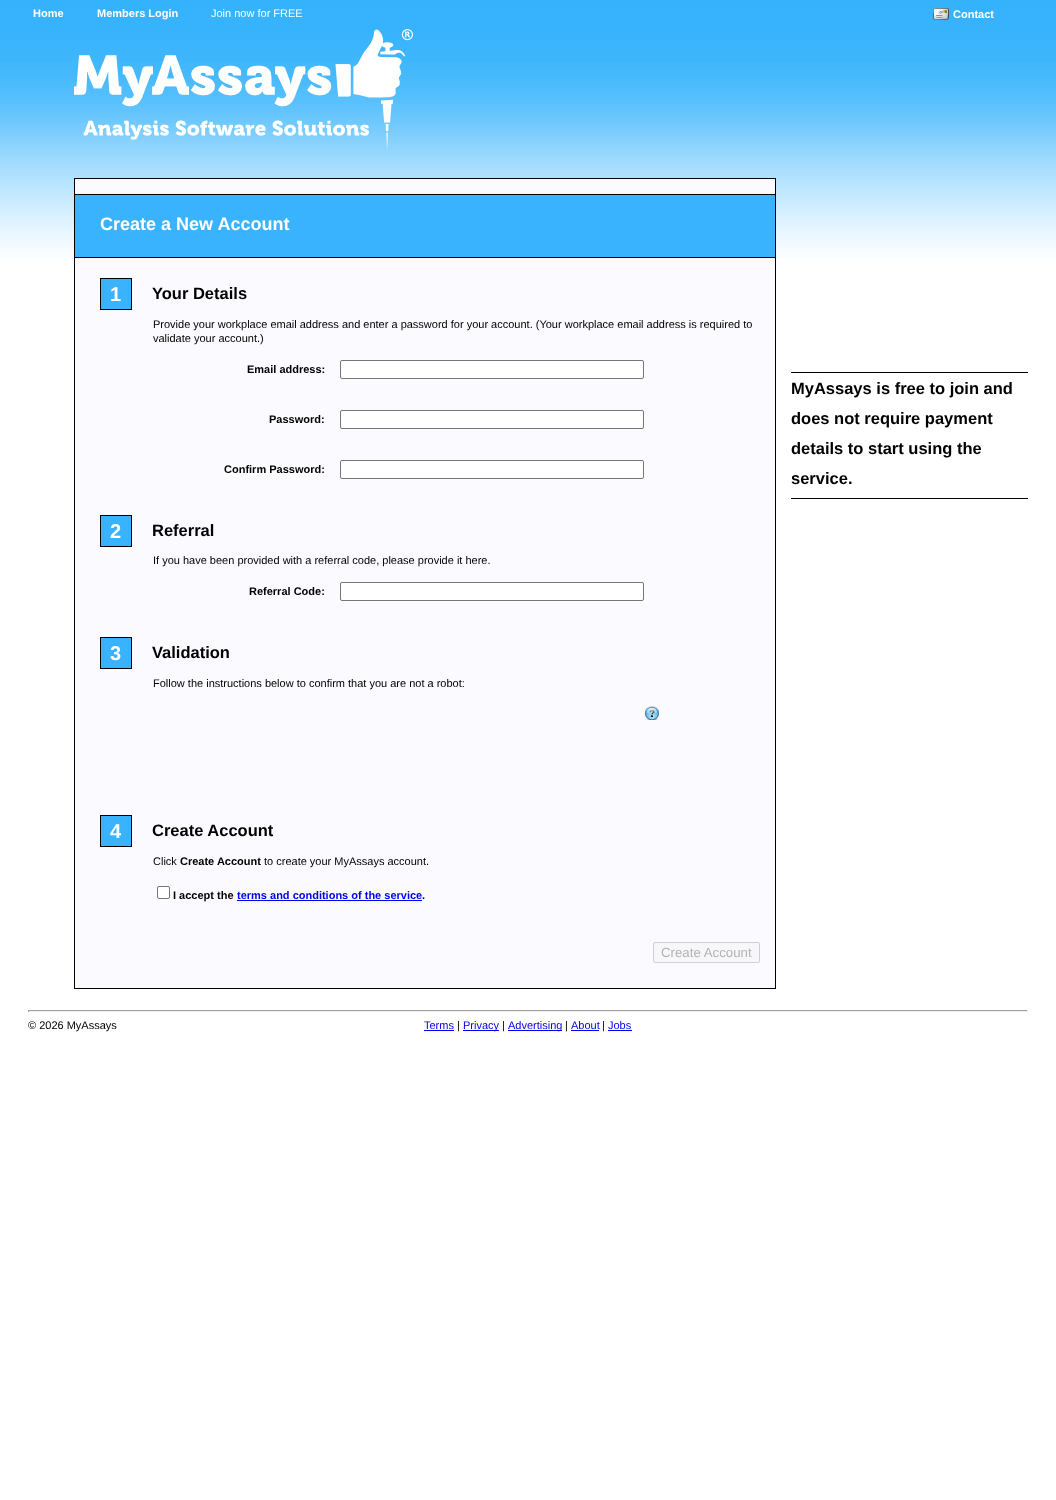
<?xml version="1.0" encoding="UTF-8"?>
<svg xmlns="http://www.w3.org/2000/svg" width="1056" height="1500">
    <rect width="100%" height="100%" fill="#FFFFFF"/>
    <image x="0" y="0" width="1056" height="258" href="img_01.png"/>
    <text x="33" y="17" font-family="Liberation Sans" font-size="11" font-weight="700" fill="#FFFFFF">Home</text>
    <text x="97" y="17" font-family="Liberation Sans" font-size="11" font-weight="700" fill="#FFFFFF">Members Login</text>
    <text x="211" y="17" font-family="Liberation Sans" font-size="11" fill="#FFFFFF">Join now for FREE</text>
    <image x="933" y="8" width="16" height="12" href="img_02.png"/>
    <text x="953" y="18" font-family="Liberation Sans" font-size="11" font-weight="700" fill="#FFFFFF">Contact</text>
    <image x="74" y="29" width="339" height="119" href="img_03.png"/>
    <rect x="74.5" y="178.5" width="701" height="810" fill="#FAFAFF" stroke="#000000"/>
    <rect x="75" y="195" width="700" height="62" fill="#39B3FD"/>
    <rect x="75" y="194" width="700" height="1" fill="#000000"/>
    <rect x="75" y="257" width="700" height="1" fill="#000000"/>
    <text x="100" y="230" font-family="Liberation Sans" font-size="18" font-weight="700" fill="#FFFFFF">Create a New Account</text>
    <rect x="100.5" y="278.5" width="31" height="31" fill="#39B3FD" stroke="#000000"/>
    <text x="110" y="301" font-family="Liberation Sans" font-size="20" font-weight="700" fill="#FFFFFF">1</text>
    <text x="152" y="299" font-family="Liberation Sans" font-size="16.5" font-weight="700" fill="#000000">Your Details</text>
    <text font-family="Liberation Sans" font-size="11" fill="#000000">
        <tspan x="153" y="328">Provide your workplace email address and enter a password for your account. (Your workplace email address is required to</tspan>
        <tspan x="153" y="342">validate your account.)</tspan>
    </text>
    <text x="247" y="373" font-family="Liberation Sans" font-size="11" font-weight="700" fill="#000000">Email address:</text>
    <rect x="340.5" y="360.5" width="303" height="18" rx="1.5" fill="#FFFFFF" stroke="#767676"/>
    <text x="269" y="423" font-family="Liberation Sans" font-size="11" font-weight="700" fill="#000000">Password:</text>
    <rect x="340.5" y="410.5" width="303" height="18" rx="1.5" fill="#FFFFFF" stroke="#767676"/>
    <text x="224" y="473" font-family="Liberation Sans" font-size="11" font-weight="700" fill="#000000">Confirm Password:</text>
    <rect x="340.5" y="460.5" width="303" height="18" rx="1.5" fill="#FFFFFF" stroke="#767676"/>
    <rect x="100.5" y="515.5" width="31" height="31" fill="#39B3FD" stroke="#000000"/>
    <text x="110" y="538" font-family="Liberation Sans" font-size="20" font-weight="700" fill="#FFFFFF">2</text>
    <text x="152" y="536" font-family="Liberation Sans" font-size="16.5" font-weight="700" fill="#000000">Referral</text>
    <text x="153" y="564" font-family="Liberation Sans" font-size="11" fill="#000000">If you have been provided with a referral code, please provide it here.</text>
    <text x="249" y="595" font-family="Liberation Sans" font-size="11" font-weight="700" fill="#000000">Referral Code:</text>
    <rect x="340.5" y="582.5" width="303" height="18" rx="1.5" fill="#FFFFFF" stroke="#767676"/>
    <rect x="100.5" y="637.5" width="31" height="31" fill="#39B3FD" stroke="#000000"/>
    <text x="110" y="660" font-family="Liberation Sans" font-size="20" font-weight="700" fill="#FFFFFF">3</text>
    <text x="152" y="658" font-family="Liberation Sans" font-size="16.5" font-weight="700" fill="#000000">Validation</text>
    <text x="153" y="687" font-family="Liberation Sans" font-size="11" fill="#000000">Follow the instructions below to confirm that you are not a robot:</text>
    <image x="645" y="706" width="14" height="14" href="img_04.png"/>
    <rect x="100.5" y="815.5" width="31" height="31" fill="#39B3FD" stroke="#000000"/>
    <text x="110" y="838" font-family="Liberation Sans" font-size="20" font-weight="700" fill="#FFFFFF">4</text>
    <text x="152" y="836" font-family="Liberation Sans" font-size="16.5" font-weight="700" fill="#000000">Create Account</text>
    <text x="153" y="865" font-family="Liberation Sans" font-size="11" fill="#000000">Click</text>
    <text x="180" y="865" font-family="Liberation Sans" font-size="11" font-weight="700" fill="#000000">Create Account</text>
    <text x="264" y="865" font-family="Liberation Sans" font-size="11" fill="#000000">to create your MyAssays account.</text>
    <rect x="157.5" y="886.5" width="12" height="12" rx="1.5" fill="#FFFFFF" stroke="#767676"/>
    <text x="173" y="899" font-family="Liberation Sans" font-size="11" font-weight="700" fill="#000000">I accept the</text>
    <text x="237" y="899" font-family="Liberation Sans" font-size="11" font-weight="700" fill="#0000EE">terms and conditions of the service</text>
    <text x="422" y="899" font-family="Liberation Sans" font-size="11" font-weight="700" fill="#000000">.</text>
    <rect x="237" y="900" width="185" height="1" fill="#0000EE"/>
    <rect x="653.5" y="942.5" width="106" height="20" rx="1.5" fill="#F7F7FA" stroke="#D0D0D2"/>
    <text x="661" y="957" font-family="Liberation Sans" font-size="13.25" fill="#B2B2B4">Create Account</text>
    <rect x="791" y="372" width="237" height="1" fill="#000000"/>
    <rect x="791" y="498" width="237" height="1" fill="#000000"/>
    <text font-family="Liberation Sans" font-size="16.5" font-weight="700" fill="#000000">
        <tspan x="791" y="394">MyAssays is free to join and</tspan>
        <tspan x="791" y="424">does not require payment</tspan>
        <tspan x="791" y="454">details to start using the</tspan>
        <tspan x="791" y="484">service.</tspan>
    </text>
    <rect x="28" y="1010" width="1000" height="1" fill="#9F9F9F"/>
    <rect x="1027" y="1010" width="1" height="2" fill="#EEEEEE"/>
    <rect x="28" y="1011" width="1000" height="1" fill="#EEEEEE"/>
    <rect x="28" y="1010" width="1" height="2" fill="#9F9F9F"/>
    <text x="28" y="1029" font-family="Liberation Sans" font-size="11" fill="#000000">© 2026 MyAssays</text>
    <text x="424" y="1029" font-family="Liberation Sans" font-size="11" fill="#0000EE">Terms</text>
    <rect x="424" y="1030" width="30" height="1" fill="#0000EE"/>
    <text x="457" y="1029" font-family="Liberation Sans" font-size="11" fill="#000000">|</text>
    <rect x="463" y="1030" width="36" height="1" fill="#0000EE"/>
    <text x="463" y="1029" font-family="Liberation Sans" font-size="11" fill="#0000EE">Privacy</text>
    <text x="502" y="1029" font-family="Liberation Sans" font-size="11" fill="#000000">|</text>
    <rect x="508" y="1030" width="54" height="1" fill="#0000EE"/>
    <text x="508" y="1029" font-family="Liberation Sans" font-size="11" fill="#0000EE">Advertising</text>
    <text x="565" y="1029" font-family="Liberation Sans" font-size="11" fill="#000000">|</text>
    <text x="571" y="1029" font-family="Liberation Sans" font-size="11" fill="#0000EE">About</text>
    <rect x="571" y="1030" width="28" height="1" fill="#0000EE"/>
    <text x="602" y="1029" font-family="Liberation Sans" font-size="11" fill="#000000">|</text>
    <text x="608" y="1029" font-family="Liberation Sans" font-size="11" fill="#0000EE">Jobs</text>
    <rect x="608" y="1030" width="24" height="1" fill="#0000EE"/>
</svg>
